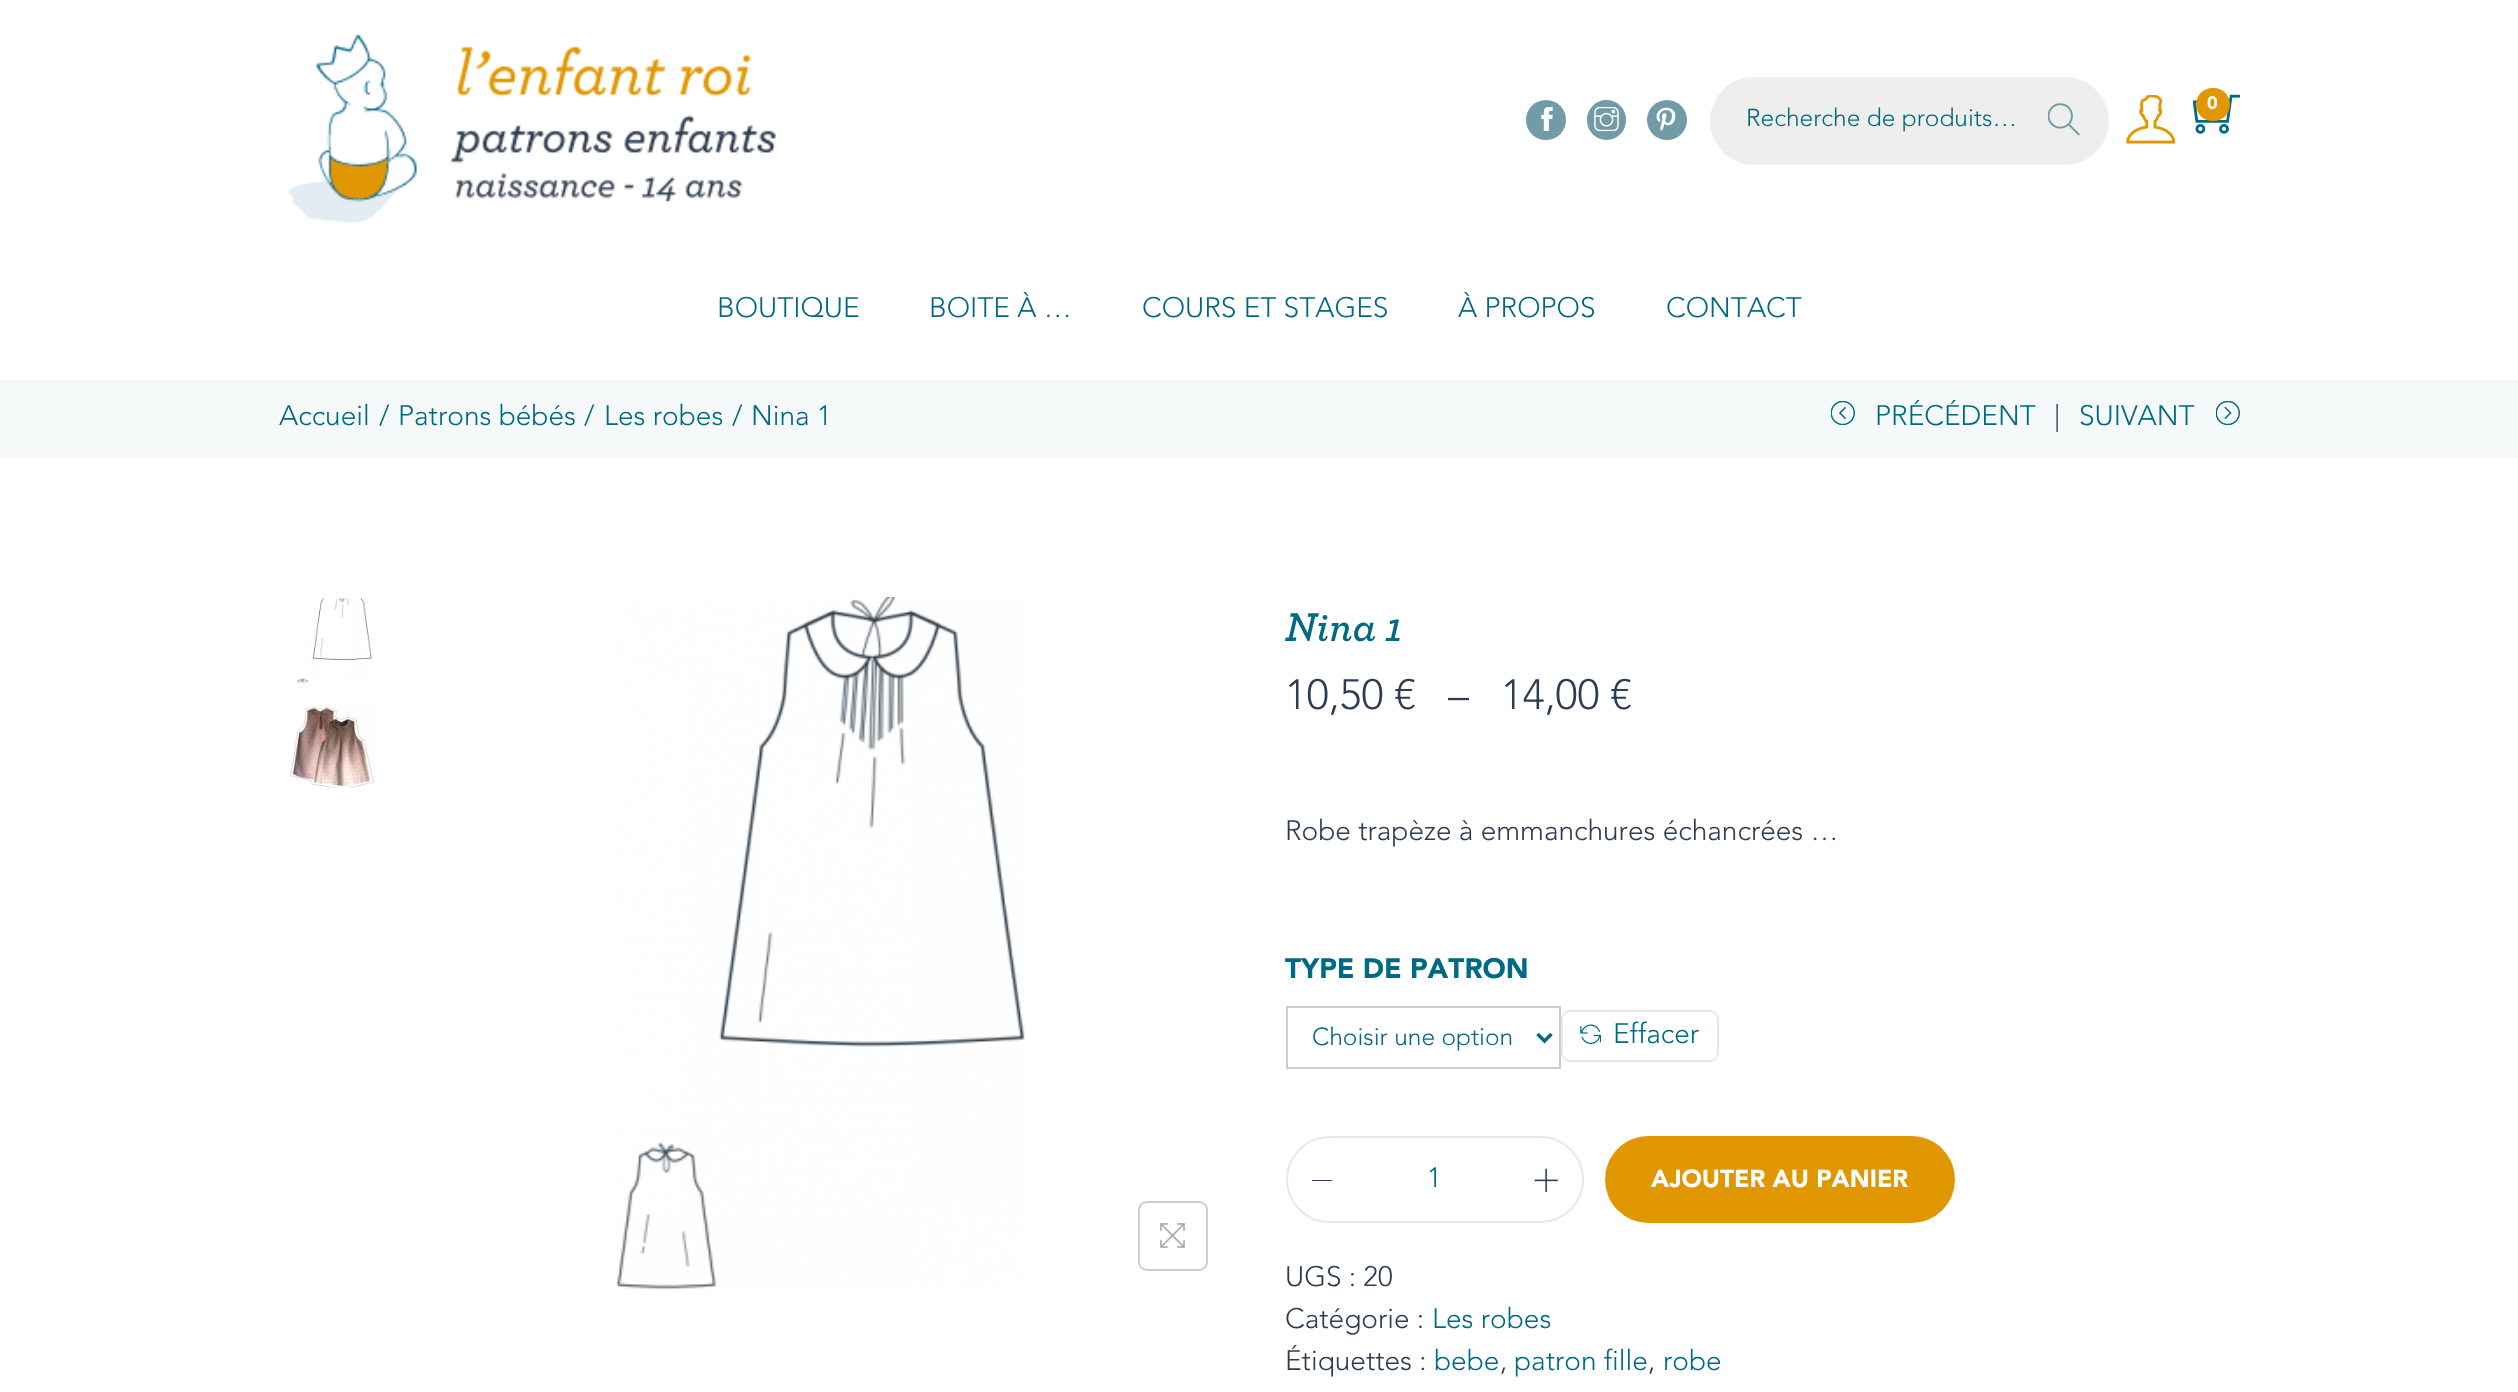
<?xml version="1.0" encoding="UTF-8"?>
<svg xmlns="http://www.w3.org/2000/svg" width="2518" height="1392">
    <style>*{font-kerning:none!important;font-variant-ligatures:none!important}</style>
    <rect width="100%" height="100%" fill="#FFFFFF"/>
    <image x="288" y="34" width="488" height="189" href="img_01.png"/>
    <circle cx="1546" cy="120" r="20" fill="#719CA7"/>
    <image x="1541" y="107" width="12" height="24" href="img_02.png"/>
    <rect x="1587" y="100" width="39" height="40" rx="19.5" fill="#719CA7"/>
    <image x="1594" y="107" width="25" height="24" href="img_03.png"/>
    <circle cx="1667" cy="120" r="20" fill="#719CA7"/>
    <image x="1656" y="107" width="20" height="24" href="img_04.png"/>
    <rect x="1710" y="77" width="399" height="88" rx="44" fill="#EEEEEC"/>
    <text x="1746" y="126" font-family="Avenir" font-size="24.5" font-weight="300" fill="#006983">Recherche de produits…</text>
    <image x="2048" y="103" width="32" height="33" href="img_05.png"/>
    <image x="2126" y="95" width="49" height="49" href="img_06.png"/>
    <image x="2193" y="94" width="47" height="40" href="img_07.png"/>
    <rect x="2196" y="88" width="34" height="33" rx="16.5" fill="#E09701"/>
    <text x="2207" y="109" font-family="Avenir" font-size="18" font-weight="900" fill="#FFFFFF">0</text>
    <text x="717" y="317" font-family="Avenir" font-size="28" font-weight="300" fill="#006983">BOUTIQUE</text>
    <text x="929" y="317" font-family="Avenir" font-size="28" font-weight="300" fill="#006983">BOITE À …</text>
    <text x="1142" y="317" font-family="Avenir" font-size="28" font-weight="300" fill="#006983">COURS ET STAGES</text>
    <text x="1458" y="317" font-family="Avenir" font-size="28" font-weight="300" fill="#006983">À PROPOS</text>
    <text x="1666" y="317" font-family="Avenir" font-size="28" font-weight="300" fill="#006983">CONTACT</text>
    <rect x="0" y="380" width="2518" height="77" fill="#F6F9F9"/>
    <text x="279" y="425" font-family="Avenir" font-size="28" font-weight="300" fill="#006983">Accueil</text>
    <text x="379" y="425" font-family="Avenir" font-size="28" font-weight="300" fill="#006983">/</text>
    <text x="398" y="425" font-family="Avenir" font-size="28" font-weight="300" fill="#006983">Patrons bébés</text>
    <text x="584" y="425" font-family="Avenir" font-size="28" font-weight="300" fill="#006983">/</text>
    <text x="604" y="425" font-family="Avenir" font-size="28" font-weight="300" fill="#006983">Les robes</text>
    <text x="732" y="425" font-family="Avenir" font-size="28" font-weight="300" fill="#006983">/</text>
    <text x="751" y="425" font-family="Avenir" font-size="28" font-weight="300" fill="#006983">Nina 1</text>
    <image x="1831" y="401" width="24" height="24" href="img_08.png"/>
    <text x="1875" y="425" font-family="Avenir" font-size="28" font-weight="300" fill="#006983">PRÉCÉDENT</text>
    <text x="2054" y="425" font-family="Avenir" font-size="28" font-weight="300" fill="#2D3C50">|</text>
    <text x="2079" y="425" font-family="Avenir" font-size="28" font-weight="300" fill="#006983">SUIVANT</text>
    <image x="2216" y="401" width="24" height="24" href="img_09.png"/>
    <image x="297" y="598" width="75" height="85" href="img_10.png"/>
    <image x="290" y="704" width="85" height="84" href="img_11.png"/>
    <image x="615" y="596" width="410" height="694" href="img_12.png"/>
    <rect x="1139" y="1202" width="68" height="68" rx="8" fill="none" stroke="#CCCCCC" stroke-width="2"/>
    <image x="1160" y="1223" width="25" height="25" href="img_13.png"/>
    <text x="1285" y="641" font-family="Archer" font-size="42" font-weight="600" font-style="italic" fill="#006983">Nina 1</text>
    <text x="1285" y="709" font-family="Avenir" font-size="42" font-weight="300" fill="#2D3C50">10,50 €</text>
    <text x="1448" y="709" font-family="Avenir" font-size="42" font-weight="300" fill="#2D3C50">–</text>
    <text x="1501" y="709" font-family="Avenir" font-size="42" font-weight="300" fill="#2D3C50">14,00 €</text>
    <text x="1285" y="840" font-family="Avenir" font-size="28" font-weight="300" fill="#2D3C50">Robe trapèze à emmanchures échancrées …</text>
    <text x="1285" y="978" font-family="Avenir" font-size="28" font-weight="900" fill="#006983">TYPE DE PATRON</text>
    <rect x="1287" y="1007" width="273" height="61" fill="none" stroke="#CCCCCC" stroke-width="2"/>
    <path d="M 1537.5 1034 L 1544.5 1041 L 1551.5 1034" fill="none" stroke="#006983" stroke-width="3.5"/>
    <text x="1312" y="1045" font-family="Avenir" font-size="24.5" font-weight="300" fill="#006983">Choisir une option</text>
    <rect x="1562" y="1011" width="156" height="50" rx="8" fill="none" stroke="#E8E8E8" stroke-width="2"/>
    <image x="1580" y="1024" width="21" height="20" href="img_14.png"/>
    <text x="1613" y="1043" font-family="Avenir" font-size="28" font-weight="300" fill="#006983">Effacer</text>
    <rect x="1287" y="1137" width="296" height="85" rx="42.5" fill="none" stroke="#E8E8E8" stroke-width="2"/>
    <rect x="1312" y="1180" width="20" height="1" fill="#2D3C50"/>
    <text x="1427" y="1187" font-family="Avenir" font-size="28" font-weight="300" fill="#006983">1</text>
    <image x="1534" y="1168" width="24" height="24" href="img_15.png"/>
    <rect x="1605" y="1136" width="350" height="87" rx="43.5" fill="#E09701"/>
    <text x="1651" y="1187" font-family="Avenir" font-size="24.5" font-weight="900" fill="#FFFFFF">AJOUTER AU PANIER</text>
    <text font-family="Avenir" font-size="28" font-weight="300" fill="#2D3C50">
        <tspan x="1285" y="1286">UGS : 20</tspan>
        <tspan x="1285" y="1328">Catégorie :</tspan>
    </text>
    <text x="1432" y="1328" font-family="Avenir" font-size="28" font-weight="300" fill="#006983">Les robes</text>
    <text x="1285" y="1370" font-family="Avenir" font-size="28" font-weight="300" fill="#2D3C50">Étiquettes :</text>
    <text x="1434" y="1370" font-family="Avenir" font-size="28" font-weight="300" fill="#006983">bebe</text>
    <text x="1500" y="1370" font-family="Avenir" font-size="28" font-weight="300" fill="#2D3C50">,</text>
    <text x="1514" y="1370" font-family="Avenir" font-size="28" font-weight="300" fill="#006983">patron fille</text>
    <text x="1648" y="1370" font-family="Avenir" font-size="28" font-weight="300" fill="#2D3C50">,</text>
    <text x="1663" y="1370" font-family="Avenir" font-size="28" font-weight="300" fill="#006983">robe</text>
</svg>
